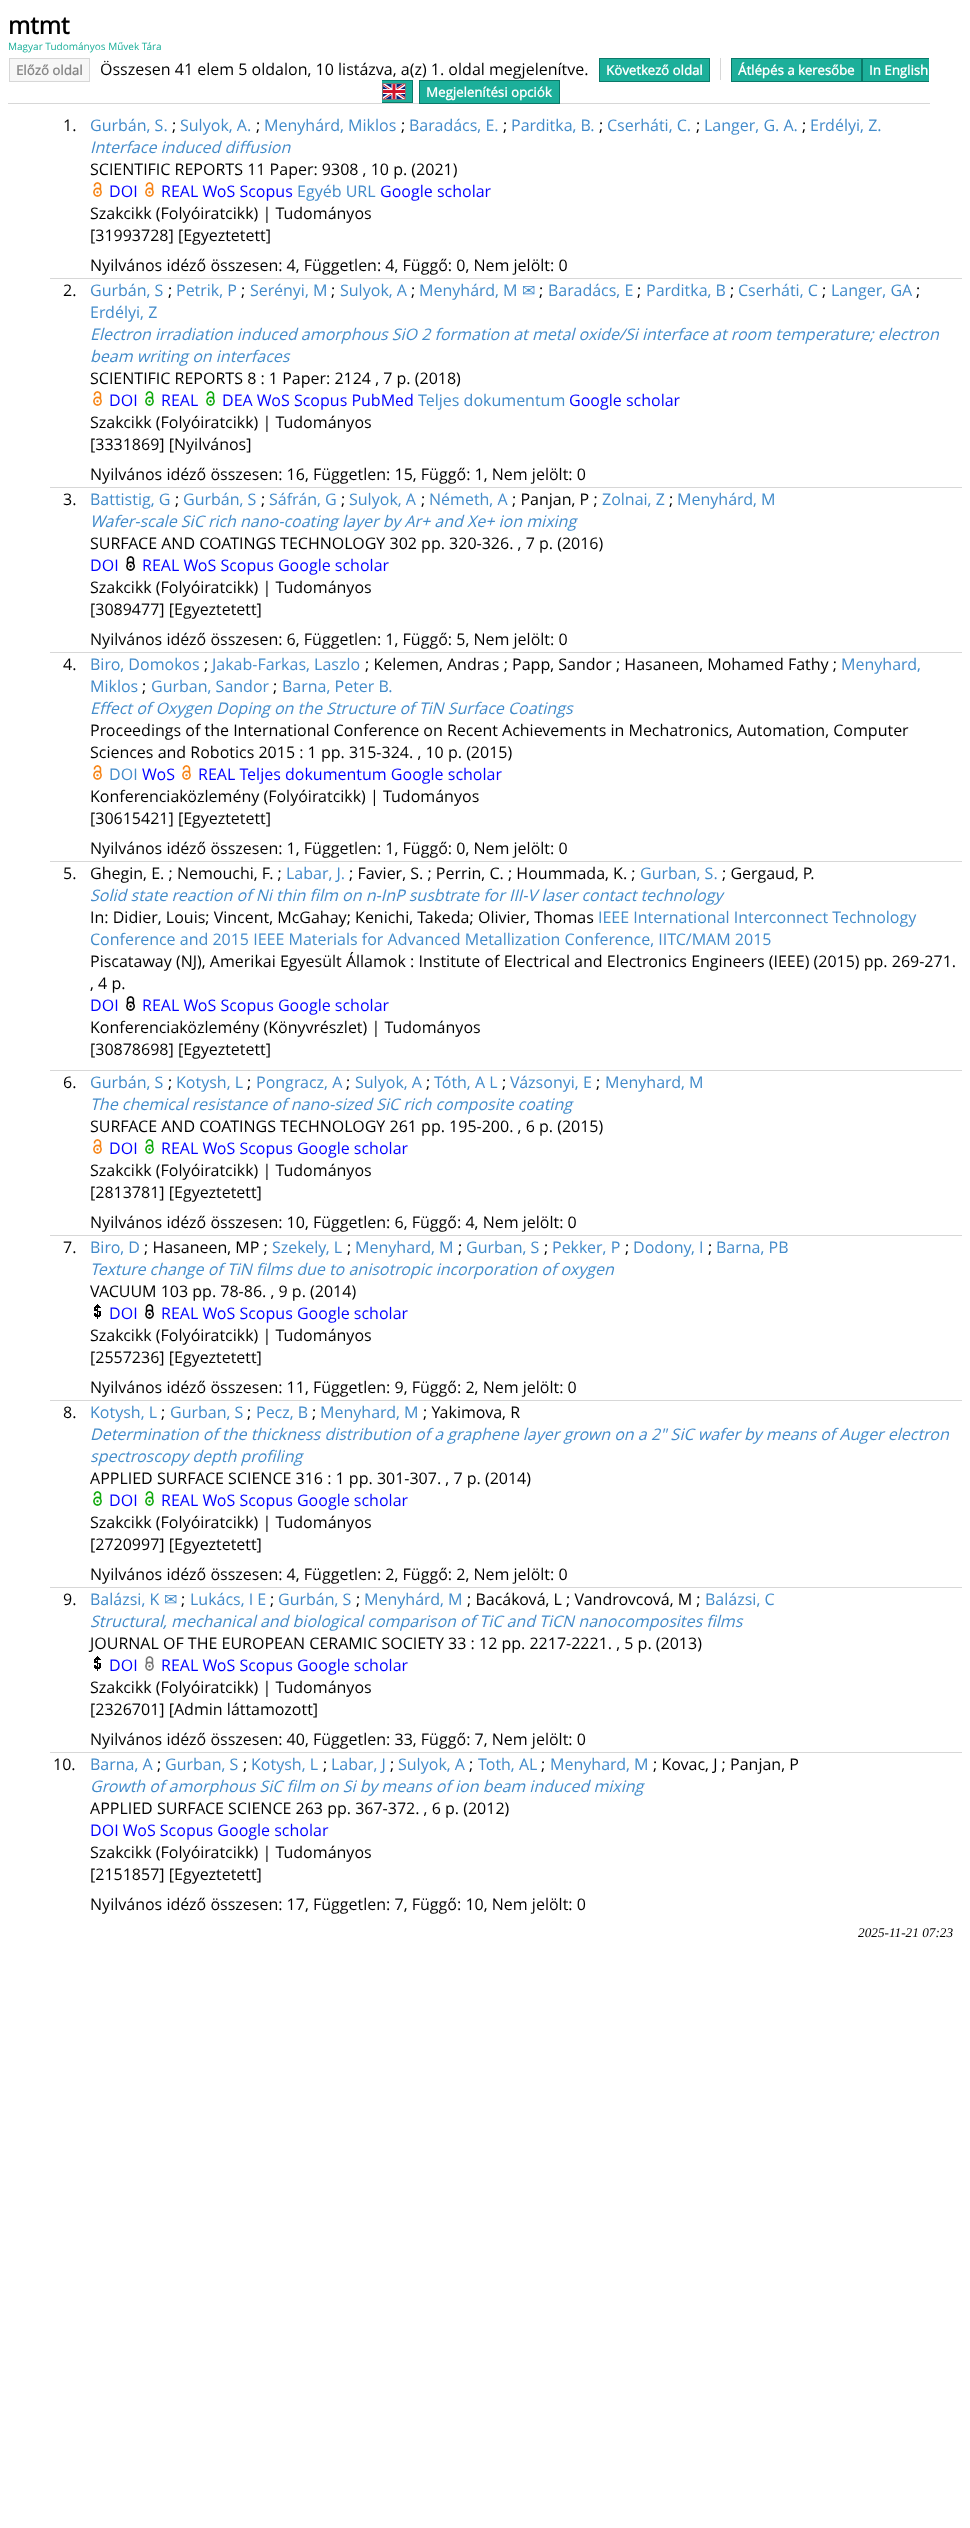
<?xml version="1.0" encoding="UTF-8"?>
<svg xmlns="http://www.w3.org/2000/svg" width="970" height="2528">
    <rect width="100%" height="100%" fill="#FFFFFF"/>
    <rect x="8" y="103" width="922" height="1" fill="#D7D7D7"/>
    <text x="8" y="34" font-family="Open Sans" font-size="24" font-weight="700" fill="#000000">mtmt</text>
    <text x="8" y="50" font-family="Open Sans" font-size="10" fill="#1CAF9A">Magyar Tudományos Művek Tára</text>
    <rect x="9.5" y="58.5" width="80" height="23" fill="#F7F7F7" stroke="#D7D7D7"/>
    <text x="16" y="75" font-family="Open Sans" font-size="13.25" font-weight="700" fill="#878787">Előző oldal</text>
    <text x="100" y="75" font-family="Open Sans" font-size="16" fill="#000000">Összesen 41 elem 5 oldalon, 10 listázva, a(z) 1. oldal megjelenítve.</text>
    <rect x="599.5" y="58.5" width="110" height="23" fill="#1CAF9A" stroke="#0B7969"/>
    <text x="606" y="75" font-family="Open Sans" font-size="13.25" font-weight="700" fill="#FFFFFF">Következő oldal</text>
    <rect x="720" y="58" width="1" height="22" fill="#D7D7D7"/>
    <rect x="731.5" y="58.5" width="130" height="23" fill="#1CAF9A" stroke="#0B7969"/>
    <text x="738" y="75" font-family="Open Sans" font-size="13.25" font-weight="700" fill="#FFFFFF">Átlépés a keresőbe</text>
    <rect x="863" y="59" width="66" height="22" fill="#1CAF9A"/>
    <text x="869" y="75" font-family="Open Sans" font-size="13.25" font-weight="700" fill="#FFFFFF">In English</text>
    <rect x="862" y="58" width="67" height="1" fill="#0B7969"/>
    <rect x="862" y="81" width="67" height="1" fill="#0B7969"/>
    <rect x="862" y="58" width="1" height="24" fill="#0B7969"/>
    <rect x="382" y="81" width="30" height="21" fill="#1CAF9A"/>
    <rect x="382" y="80" width="31" height="1" fill="#0B7969"/>
    <rect x="412" y="80" width="1" height="23" fill="#0B7969"/>
    <rect x="382" y="102" width="31" height="1" fill="#0B7969"/>
    <rect x="382.5" y="83.5" width="23" height="16" fill="none" stroke="#777777"/>
    <image x="383" y="84" width="22" height="15" href="img_01.png"/>
    <rect x="419.5" y="80.5" width="140" height="23" fill="#1CAF9A" stroke="#0B7969"/>
    <text x="426" y="97" font-family="Open Sans" font-size="13.25" font-weight="700" fill="#FFFFFF">Megjelenítési opciók</text>
    <text x="63" y="131" font-family="Open Sans" font-size="16" fill="#000000">1.</text>
    <text x="90" y="131" font-family="Open Sans" font-size="16" fill="#428BCA">Gurbán, S.</text>
    <text x="172" y="131" font-family="Open Sans" font-size="16" fill="#000000">;</text>
    <text x="180" y="131" font-family="Open Sans" font-size="16" fill="#428BCA">Sulyok, A.</text>
    <text x="256" y="131" font-family="Open Sans" font-size="16" fill="#000000">;</text>
    <text x="264" y="131" font-family="Open Sans" font-size="16" fill="#428BCA">Menyhárd, Miklos</text>
    <text x="401" y="131" font-family="Open Sans" font-size="16" fill="#000000">;</text>
    <text x="409" y="131" font-family="Open Sans" font-size="16" fill="#428BCA">Baradács, E.</text>
    <text x="503" y="131" font-family="Open Sans" font-size="16" fill="#000000">;</text>
    <text x="511" y="131" font-family="Open Sans" font-size="16" fill="#428BCA">Parditka, B.</text>
    <text x="599" y="131" font-family="Open Sans" font-size="16" fill="#000000">;</text>
    <text x="607" y="131" font-family="Open Sans" font-size="16" fill="#428BCA">Cserháti, C.</text>
    <text x="696" y="131" font-family="Open Sans" font-size="16" fill="#000000">;</text>
    <text x="704" y="131" font-family="Open Sans" font-size="16" fill="#428BCA">Langer, G. A.</text>
    <text x="802" y="131" font-family="Open Sans" font-size="16" fill="#000000">;</text>
    <text x="810" y="131" font-family="Open Sans" font-size="16" fill="#428BCA">Erdélyi, Z.</text>
    <text x="90" y="153" font-family="Open Sans" font-size="16" font-style="italic" fill="#428BCA">Interface induced diffusion</text>
    <text x="90" y="175" font-family="Open Sans" font-size="16" fill="#000000">SCIENTIFIC REPORTS 11 Paper: 9308 , 10 p. (2021)</text>
    <image x="93" y="182" width="9" height="15" href="img_02.png"/>
    <text x="109" y="197" font-family="Open Sans" font-size="16" fill="#0000FF">DOI</text>
    <image x="145" y="182" width="9" height="15" href="img_02.png"/>
    <text x="161" y="197" font-family="Open Sans" font-size="16" fill="#0000FF">REAL WoS Scopus</text>
    <text x="297" y="197" font-family="Open Sans" font-size="16" fill="#428BCA">Egyéb URL</text>
    <text x="380" y="197" font-family="Open Sans" font-size="16" fill="#0000FF">Google scholar</text>
    <text font-family="Open Sans" font-size="16" fill="#000000">
        <tspan x="90" y="219">Szakcikk (Folyóiratcikk) | Tudományos</tspan>
        <tspan x="90" y="241">[31993728] [Egyeztetett]</tspan>
        <tspan x="90" y="271">Nyilvános idéző összesen: 4, Független: 4, Függő: 0, Nem jelölt: 0</tspan>
    </text>
    <rect x="50" y="278" width="912" height="1" fill="#D7D7D7"/>
    <text x="63" y="296" font-family="Open Sans" font-size="16" fill="#000000">2.</text>
    <text x="90" y="296" font-family="Open Sans" font-size="16" fill="#428BCA">Gurbán, S</text>
    <text x="168" y="296" font-family="Open Sans" font-size="16" fill="#000000">;</text>
    <text x="176" y="296" font-family="Open Sans" font-size="16" fill="#428BCA">Petrik, P</text>
    <text x="241" y="296" font-family="Open Sans" font-size="16" fill="#000000">;</text>
    <text x="250" y="296" font-family="Open Sans" font-size="16" fill="#428BCA">Serényi, M</text>
    <text x="331" y="296" font-family="Open Sans" font-size="16" fill="#000000">;</text>
    <text x="340" y="296" font-family="Open Sans" font-size="16" fill="#428BCA">Sulyok, A</text>
    <text x="411" y="296" font-family="Open Sans" font-size="16" fill="#000000">;</text>
    <text x="419" y="296" font-family="Open Sans" font-size="16" fill="#428BCA">Menyhárd, M</text>
    <text x="522" y="296" font-family="DejaVu Sans" font-size="16" fill="#428BCA">✉</text>
    <text x="539" y="296" font-family="Open Sans" font-size="16" fill="#000000">;</text>
    <text x="548" y="296" font-family="Open Sans" font-size="16" fill="#428BCA">Baradács, E</text>
    <text x="637" y="296" font-family="Open Sans" font-size="16" fill="#000000">;</text>
    <text x="646" y="296" font-family="Open Sans" font-size="16" fill="#428BCA">Parditka, B</text>
    <text x="730" y="296" font-family="Open Sans" font-size="16" fill="#000000">;</text>
    <text x="738" y="296" font-family="Open Sans" font-size="16" fill="#428BCA">Cserháti, C</text>
    <text x="822" y="296" font-family="Open Sans" font-size="16" fill="#000000">;</text>
    <text x="831" y="296" font-family="Open Sans" font-size="16" fill="#428BCA">Langer, GA</text>
    <text x="916" y="296" font-family="Open Sans" font-size="16" fill="#000000">;</text>
    <text x="90" y="318" font-family="Open Sans" font-size="16" fill="#428BCA">Erdélyi, Z</text>
    <text font-family="Open Sans" font-size="16" font-style="italic" fill="#428BCA">
        <tspan x="90" y="340">Electron irradiation induced amorphous SiO 2 formation at metal oxide/Si interface at room temperature; electron</tspan>
        <tspan x="90" y="362">beam writing on interfaces</tspan>
    </text>
    <text x="90" y="384" font-family="Open Sans" font-size="16" fill="#000000">SCIENTIFIC REPORTS 8 : 1 Paper: 2124 , 7 p. (2018)</text>
    <image x="93" y="391" width="9" height="15" href="img_02.png"/>
    <text x="109" y="406" font-family="Open Sans" font-size="16" fill="#0000FF">DOI</text>
    <image x="145" y="391" width="9" height="15" href="img_03.png"/>
    <text x="161" y="406" font-family="Open Sans" font-size="16" fill="#0000FF">REAL</text>
    <image x="206" y="391" width="9" height="15" href="img_03.png"/>
    <text x="222" y="406" font-family="Open Sans" font-size="16" fill="#0000FF">DEA WoS Scopus PubMed</text>
    <text x="418" y="406" font-family="Open Sans" font-size="16" fill="#428BCA">Teljes dokumentum</text>
    <text x="569" y="406" font-family="Open Sans" font-size="16" fill="#0000FF">Google scholar</text>
    <text font-family="Open Sans" font-size="16" fill="#000000">
        <tspan x="90" y="428">Szakcikk (Folyóiratcikk) | Tudományos</tspan>
        <tspan x="90" y="450">[3331869] [Nyilvános]</tspan>
        <tspan x="90" y="480">Nyilvános idéző összesen: 16, Független: 15, Függő: 1, Nem jelölt: 0</tspan>
    </text>
    <rect x="50" y="487" width="912" height="1" fill="#D7D7D7"/>
    <text x="63" y="505" font-family="Open Sans" font-size="16" fill="#000000">3.</text>
    <text x="90" y="505" font-family="Open Sans" font-size="16" fill="#428BCA">Battistig, G</text>
    <text x="175" y="505" font-family="Open Sans" font-size="16" fill="#000000">;</text>
    <text x="183" y="505" font-family="Open Sans" font-size="16" fill="#428BCA">Gurbán, S</text>
    <text x="261" y="505" font-family="Open Sans" font-size="16" fill="#000000">;</text>
    <text x="269" y="505" font-family="Open Sans" font-size="16" fill="#428BCA">Sáfrán, G</text>
    <text x="341" y="505" font-family="Open Sans" font-size="16" fill="#000000">;</text>
    <text x="349" y="505" font-family="Open Sans" font-size="16" fill="#428BCA">Sulyok, A</text>
    <text x="421" y="505" font-family="Open Sans" font-size="16" fill="#000000">;</text>
    <text x="429" y="505" font-family="Open Sans" font-size="16" fill="#428BCA">Németh, A</text>
    <text x="512" y="505" font-family="Open Sans" font-size="16" fill="#000000">; Panjan, P ;</text>
    <text x="602" y="505" font-family="Open Sans" font-size="16" fill="#428BCA">Zolnai, Z</text>
    <text x="669" y="505" font-family="Open Sans" font-size="16" fill="#000000">;</text>
    <text x="677" y="505" font-family="Open Sans" font-size="16" fill="#428BCA">Menyhárd, M</text>
    <text x="90" y="527" font-family="Open Sans" font-size="16" font-style="italic" fill="#428BCA">Wafer-scale SiC rich nano-coating layer by Ar+ and Xe+ ion mixing</text>
    <text x="90" y="549" font-family="Open Sans" font-size="16" fill="#000000">SURFACE AND COATINGS TECHNOLOGY 302 pp. 320-326. , 7 p. (2016)</text>
    <text x="90" y="571" font-family="Open Sans" font-size="16" fill="#0000FF">DOI</text>
    <image x="126" y="556" width="9" height="15" href="img_04.png"/>
    <text x="142" y="571" font-family="Open Sans" font-size="16" fill="#0000FF">REAL WoS Scopus Google scholar</text>
    <text font-family="Open Sans" font-size="16" fill="#000000">
        <tspan x="90" y="593">Szakcikk (Folyóiratcikk) | Tudományos</tspan>
        <tspan x="90" y="615">[3089477] [Egyeztetett]</tspan>
        <tspan x="90" y="645">Nyilvános idéző összesen: 6, Független: 1, Függő: 5, Nem jelölt: 0</tspan>
    </text>
    <rect x="50" y="652" width="912" height="1" fill="#D7D7D7"/>
    <text x="63" y="670" font-family="Open Sans" font-size="16" fill="#000000">4.</text>
    <text x="90" y="670" font-family="Open Sans" font-size="16" fill="#428BCA">Biro, Domokos</text>
    <text x="204" y="670" font-family="Open Sans" font-size="16" fill="#000000">;</text>
    <text x="212" y="670" font-family="Open Sans" font-size="16" fill="#428BCA">Jakab-Farkas, Laszlo</text>
    <text x="365" y="670" font-family="Open Sans" font-size="16" fill="#000000">; Kelemen, Andras ; Papp, Sandor ; Hasaneen, Mohamed Fathy ;</text>
    <text x="841" y="670" font-family="Open Sans" font-size="16" fill="#428BCA">Menyhard,</text>
    <text x="90" y="692" font-family="Open Sans" font-size="16" fill="#428BCA">Miklos</text>
    <text x="142" y="692" font-family="Open Sans" font-size="16" fill="#000000">;</text>
    <text x="151" y="692" font-family="Open Sans" font-size="16" fill="#428BCA">Gurban, Sandor</text>
    <text x="273" y="692" font-family="Open Sans" font-size="16" fill="#000000">;</text>
    <text x="282" y="692" font-family="Open Sans" font-size="16" fill="#428BCA">Barna, Peter B.</text>
    <text x="90" y="714" font-family="Open Sans" font-size="16" font-style="italic" fill="#428BCA">Effect of Oxygen Doping on the Structure of TiN Surface Coatings</text>
    <text font-family="Open Sans" font-size="16" fill="#000000">
        <tspan x="90" y="736">Proceedings of the International Conference on Recent Achievements in Mechatronics, Automation, Computer</tspan>
        <tspan x="90" y="758">Sciences and Robotics 2015 : 1 pp. 315-324. , 10 p. (2015)</tspan>
    </text>
    <image x="93" y="765" width="9" height="15" href="img_02.png"/>
    <text x="109" y="780" font-family="Open Sans" font-size="16" fill="#428BCA">DOI</text>
    <text x="142" y="780" font-family="Open Sans" font-size="16" fill="#0000FF">WoS</text>
    <image x="182" y="765" width="9" height="15" href="img_02.png"/>
    <text x="198" y="780" font-family="Open Sans" font-size="16" fill="#0000FF">REAL Teljes dokumentum Google scholar</text>
    <text font-family="Open Sans" font-size="16" fill="#000000">
        <tspan x="90" y="802">Konferenciaközlemény (Folyóiratcikk) | Tudományos</tspan>
        <tspan x="90" y="824">[30615421] [Egyeztetett]</tspan>
        <tspan x="90" y="854">Nyilvános idéző összesen: 1, Független: 1, Függő: 0, Nem jelölt: 0</tspan>
    </text>
    <rect x="50" y="861" width="912" height="1" fill="#D7D7D7"/>
    <text x="63" y="879" font-family="Open Sans" font-size="16" fill="#000000">5.</text>
    <text x="90" y="879" font-family="Open Sans" font-size="16" fill="#000000">Ghegin, E. ; Nemouchi, F. ;</text>
    <text x="286" y="879" font-family="Open Sans" font-size="16" fill="#428BCA">Labar, J.</text>
    <text x="349" y="879" font-family="Open Sans" font-size="16" fill="#000000">; Favier, S. ; Perrin, C. ; Hoummada, K. ;</text>
    <text x="640" y="879" font-family="Open Sans" font-size="16" fill="#428BCA">Gurban, S.</text>
    <text x="722" y="879" font-family="Open Sans" font-size="16" fill="#000000">; Gergaud, P.</text>
    <text x="90" y="901" font-family="Open Sans" font-size="16" font-style="italic" fill="#428BCA">Solid state reaction of Ni thin film on n-InP susbtrate for III-V laser contact technology</text>
    <text x="90" y="923" font-family="Open Sans" font-size="16" fill="#000000">In: Didier, Louis; Vincent, McGahay; Kenichi, Takeda; Olivier, Thomas</text>
    <text x="598" y="923" font-family="Open Sans" font-size="16" fill="#428BCA">IEEE International Interconnect Technology</text>
    <text x="90" y="945" font-family="Open Sans" font-size="16" fill="#428BCA">Conference and 2015 IEEE Materials for Advanced Metallization Conference, IITC/MAM 2015</text>
    <text font-family="Open Sans" font-size="16" fill="#000000">
        <tspan x="90" y="967">Piscataway (NJ), Amerikai Egyesült Államok : Institute of Electrical and Electronics Engineers (IEEE) (2015) pp. 269-271.</tspan>
        <tspan x="90" y="989">, 4 p.</tspan>
    </text>
    <text x="90" y="1011" font-family="Open Sans" font-size="16" fill="#0000FF">DOI</text>
    <image x="126" y="996" width="9" height="15" href="img_04.png"/>
    <text x="142" y="1011" font-family="Open Sans" font-size="16" fill="#0000FF">REAL WoS Scopus Google scholar</text>
    <text font-family="Open Sans" font-size="16" fill="#000000">
        <tspan x="90" y="1033">Konferenciaközlemény (Könyvrészlet) | Tudományos</tspan>
        <tspan x="90" y="1055">[30878698] [Egyeztetett]</tspan>
    </text>
    <rect x="50" y="1070" width="912" height="1" fill="#D7D7D7"/>
    <text x="63" y="1088" font-family="Open Sans" font-size="16" fill="#000000">6.</text>
    <text x="90" y="1088" font-family="Open Sans" font-size="16" fill="#428BCA">Gurbán, S</text>
    <text x="168" y="1088" font-family="Open Sans" font-size="16" fill="#000000">;</text>
    <text x="176" y="1088" font-family="Open Sans" font-size="16" fill="#428BCA">Kotysh, L</text>
    <text x="247" y="1088" font-family="Open Sans" font-size="16" fill="#000000">;</text>
    <text x="256" y="1088" font-family="Open Sans" font-size="16" fill="#428BCA">Pongracz, A</text>
    <text x="346" y="1088" font-family="Open Sans" font-size="16" fill="#000000">;</text>
    <text x="355" y="1088" font-family="Open Sans" font-size="16" fill="#428BCA">Sulyok, A</text>
    <text x="426" y="1088" font-family="Open Sans" font-size="16" fill="#000000">;</text>
    <text x="434" y="1088" font-family="Open Sans" font-size="16" fill="#428BCA">Tóth, A L</text>
    <text x="502" y="1088" font-family="Open Sans" font-size="16" fill="#000000">;</text>
    <text x="510" y="1088" font-family="Open Sans" font-size="16" fill="#428BCA">Vázsonyi, E</text>
    <text x="596" y="1088" font-family="Open Sans" font-size="16" fill="#000000">;</text>
    <text x="605" y="1088" font-family="Open Sans" font-size="16" fill="#428BCA">Menyhard, M</text>
    <text x="90" y="1110" font-family="Open Sans" font-size="16" font-style="italic" fill="#428BCA">The chemical resistance of nano-sized SiC rich composite coating</text>
    <text x="90" y="1132" font-family="Open Sans" font-size="16" fill="#000000">SURFACE AND COATINGS TECHNOLOGY 261 pp. 195-200. , 6 p. (2015)</text>
    <image x="93" y="1139" width="9" height="15" href="img_02.png"/>
    <text x="109" y="1154" font-family="Open Sans" font-size="16" fill="#0000FF">DOI</text>
    <image x="145" y="1139" width="9" height="15" href="img_03.png"/>
    <text x="161" y="1154" font-family="Open Sans" font-size="16" fill="#0000FF">REAL WoS Scopus Google scholar</text>
    <text font-family="Open Sans" font-size="16" fill="#000000">
        <tspan x="90" y="1176">Szakcikk (Folyóiratcikk) | Tudományos</tspan>
        <tspan x="90" y="1198">[2813781] [Egyeztetett]</tspan>
        <tspan x="90" y="1228">Nyilvános idéző összesen: 10, Független: 6, Függő: 4, Nem jelölt: 0</tspan>
    </text>
    <rect x="50" y="1235" width="912" height="1" fill="#D7D7D7"/>
    <text x="63" y="1253" font-family="Open Sans" font-size="16" fill="#000000">7.</text>
    <text x="90" y="1253" font-family="Open Sans" font-size="16" fill="#428BCA">Biro, D</text>
    <text x="144" y="1253" font-family="Open Sans" font-size="16" fill="#000000">; Hasaneen, MP ;</text>
    <text x="272" y="1253" font-family="Open Sans" font-size="16" fill="#428BCA">Szekely, L</text>
    <text x="347" y="1253" font-family="Open Sans" font-size="16" fill="#000000">;</text>
    <text x="355" y="1253" font-family="Open Sans" font-size="16" fill="#428BCA">Menyhard, M</text>
    <text x="458" y="1253" font-family="Open Sans" font-size="16" fill="#000000">;</text>
    <text x="466" y="1253" font-family="Open Sans" font-size="16" fill="#428BCA">Gurban, S</text>
    <text x="544" y="1253" font-family="Open Sans" font-size="16" fill="#000000">;</text>
    <text x="552" y="1253" font-family="Open Sans" font-size="16" fill="#428BCA">Pekker, P</text>
    <text x="625" y="1253" font-family="Open Sans" font-size="16" fill="#000000">;</text>
    <text x="633" y="1253" font-family="Open Sans" font-size="16" fill="#428BCA">Dodony, I</text>
    <text x="708" y="1253" font-family="Open Sans" font-size="16" fill="#000000">;</text>
    <text x="716" y="1253" font-family="Open Sans" font-size="16" fill="#428BCA">Barna, PB</text>
    <text x="90" y="1275" font-family="Open Sans" font-size="16" font-style="italic" fill="#428BCA">Texture change of TiN films due to anisotropic incorporation of oxygen</text>
    <text x="90" y="1297" font-family="Open Sans" font-size="16" fill="#000000">VACUUM 103 pp. 78-86. , 9 p. (2014)</text>
    <image x="94" y="1304" width="7" height="15" href="img_05.png"/>
    <text x="109" y="1319" font-family="Open Sans" font-size="16" fill="#0000FF">DOI</text>
    <image x="145" y="1304" width="9" height="15" href="img_04.png"/>
    <text x="161" y="1319" font-family="Open Sans" font-size="16" fill="#0000FF">REAL WoS Scopus Google scholar</text>
    <text font-family="Open Sans" font-size="16" fill="#000000">
        <tspan x="90" y="1341">Szakcikk (Folyóiratcikk) | Tudományos</tspan>
        <tspan x="90" y="1363">[2557236] [Egyeztetett]</tspan>
        <tspan x="90" y="1393">Nyilvános idéző összesen: 11, Független: 9, Függő: 2, Nem jelölt: 0</tspan>
    </text>
    <rect x="50" y="1400" width="912" height="1" fill="#D7D7D7"/>
    <text x="63" y="1418" font-family="Open Sans" font-size="16" fill="#000000">8.</text>
    <text x="90" y="1418" font-family="Open Sans" font-size="16" fill="#428BCA">Kotysh, L</text>
    <text x="161" y="1418" font-family="Open Sans" font-size="16" fill="#000000">;</text>
    <text x="170" y="1418" font-family="Open Sans" font-size="16" fill="#428BCA">Gurban, S</text>
    <text x="247" y="1418" font-family="Open Sans" font-size="16" fill="#000000">;</text>
    <text x="256" y="1418" font-family="Open Sans" font-size="16" fill="#428BCA">Pecz, B</text>
    <text x="312" y="1418" font-family="Open Sans" font-size="16" fill="#000000">;</text>
    <text x="320" y="1418" font-family="Open Sans" font-size="16" fill="#428BCA">Menyhard, M</text>
    <text x="423" y="1418" font-family="Open Sans" font-size="16" fill="#000000">; Yakimova, R</text>
    <text font-family="Open Sans" font-size="16" font-style="italic" fill="#428BCA">
        <tspan x="90" y="1440">Determination of the thickness distribution of a graphene layer grown on a 2" SiC wafer by means of Auger electron</tspan>
        <tspan x="90" y="1462">spectroscopy depth profiling</tspan>
    </text>
    <text x="90" y="1484" font-family="Open Sans" font-size="16" fill="#000000">APPLIED SURFACE SCIENCE 316 : 1 pp. 301-307. , 7 p. (2014)</text>
    <image x="93" y="1491" width="9" height="15" href="img_03.png"/>
    <text x="109" y="1506" font-family="Open Sans" font-size="16" fill="#0000FF">DOI</text>
    <image x="145" y="1491" width="9" height="15" href="img_03.png"/>
    <text x="161" y="1506" font-family="Open Sans" font-size="16" fill="#0000FF">REAL WoS Scopus Google scholar</text>
    <text font-family="Open Sans" font-size="16" fill="#000000">
        <tspan x="90" y="1528">Szakcikk (Folyóiratcikk) | Tudományos</tspan>
        <tspan x="90" y="1550">[2720997] [Egyeztetett]</tspan>
        <tspan x="90" y="1580">Nyilvános idéző összesen: 4, Független: 2, Függő: 2, Nem jelölt: 0</tspan>
    </text>
    <rect x="50" y="1587" width="912" height="1" fill="#D7D7D7"/>
    <text x="63" y="1605" font-family="Open Sans" font-size="16" fill="#000000">9.</text>
    <text x="90" y="1605" font-family="Open Sans" font-size="16" fill="#428BCA">Balázsi, K</text>
    <text x="164" y="1605" font-family="DejaVu Sans" font-size="16" fill="#428BCA">✉</text>
    <text x="181" y="1605" font-family="Open Sans" font-size="16" fill="#000000">;</text>
    <text x="190" y="1605" font-family="Open Sans" font-size="16" fill="#428BCA">Lukács, I E</text>
    <text x="270" y="1605" font-family="Open Sans" font-size="16" fill="#000000">;</text>
    <text x="278" y="1605" font-family="Open Sans" font-size="16" fill="#428BCA">Gurbán, S</text>
    <text x="356" y="1605" font-family="Open Sans" font-size="16" fill="#000000">;</text>
    <text x="364" y="1605" font-family="Open Sans" font-size="16" fill="#428BCA">Menyhárd, M</text>
    <text x="467" y="1605" font-family="Open Sans" font-size="16" fill="#000000">; Bacáková, L ; Vandrovcová, M ;</text>
    <text x="705" y="1605" font-family="Open Sans" font-size="16" fill="#428BCA">Balázsi, C</text>
    <text x="90" y="1627" font-family="Open Sans" font-size="16" font-style="italic" fill="#428BCA">Structural, mechanical and biological comparison of TiC and TiCN nanocomposites films</text>
    <text x="90" y="1649" font-family="Open Sans" font-size="16" fill="#000000">JOURNAL OF THE EUROPEAN CERAMIC SOCIETY 33 : 12 pp. 2217-2221. , 5 p. (2013)</text>
    <image x="94" y="1656" width="7" height="15" href="img_05.png"/>
    <text x="109" y="1671" font-family="Open Sans" font-size="16" fill="#0000FF">DOI</text>
    <image x="145" y="1656" width="9" height="15" href="img_06.png"/>
    <text x="161" y="1671" font-family="Open Sans" font-size="16" fill="#0000FF">REAL WoS Scopus Google scholar</text>
    <text font-family="Open Sans" font-size="16" fill="#000000">
        <tspan x="90" y="1693">Szakcikk (Folyóiratcikk) | Tudományos</tspan>
        <tspan x="90" y="1715">[2326701] [Admin láttamozott]</tspan>
        <tspan x="90" y="1745">Nyilvános idéző összesen: 40, Független: 33, Függő: 7, Nem jelölt: 0</tspan>
    </text>
    <rect x="50" y="1752" width="912" height="1" fill="#D7D7D7"/>
    <text x="53" y="1770" font-family="Open Sans" font-size="16" fill="#000000">10.</text>
    <text x="90" y="1770" font-family="Open Sans" font-size="16" fill="#428BCA">Barna, A</text>
    <text x="157" y="1770" font-family="Open Sans" font-size="16" fill="#000000">;</text>
    <text x="165" y="1770" font-family="Open Sans" font-size="16" fill="#428BCA">Gurban, S</text>
    <text x="243" y="1770" font-family="Open Sans" font-size="16" fill="#000000">;</text>
    <text x="251" y="1770" font-family="Open Sans" font-size="16" fill="#428BCA">Kotysh, L</text>
    <text x="323" y="1770" font-family="Open Sans" font-size="16" fill="#000000">;</text>
    <text x="331" y="1770" font-family="Open Sans" font-size="16" fill="#428BCA">Labar, J</text>
    <text x="390" y="1770" font-family="Open Sans" font-size="16" fill="#000000">;</text>
    <text x="398" y="1770" font-family="Open Sans" font-size="16" fill="#428BCA">Sulyok, A</text>
    <text x="469" y="1770" font-family="Open Sans" font-size="16" fill="#000000">;</text>
    <text x="478" y="1770" font-family="Open Sans" font-size="16" fill="#428BCA">Toth, AL</text>
    <text x="541" y="1770" font-family="Open Sans" font-size="16" fill="#000000">;</text>
    <text x="550" y="1770" font-family="Open Sans" font-size="16" fill="#428BCA">Menyhard, M</text>
    <text x="653" y="1770" font-family="Open Sans" font-size="16" fill="#000000">; Kovac, J ; Panjan, P</text>
    <text x="90" y="1792" font-family="Open Sans" font-size="16" font-style="italic" fill="#428BCA">Growth of amorphous SiC film on Si by means of ion beam induced mixing</text>
    <text x="90" y="1814" font-family="Open Sans" font-size="16" fill="#000000">APPLIED SURFACE SCIENCE 263 pp. 367-372. , 6 p. (2012)</text>
    <text x="90" y="1836" font-family="Open Sans" font-size="16" fill="#0000FF">DOI WoS Scopus Google scholar</text>
    <text font-family="Open Sans" font-size="16" fill="#000000">
        <tspan x="90" y="1858">Szakcikk (Folyóiratcikk) | Tudományos</tspan>
        <tspan x="90" y="1880">[2151857] [Egyeztetett]</tspan>
        <tspan x="90" y="1910">Nyilvános idéző összesen: 17, Független: 7, Függő: 10, Nem jelölt: 0</tspan>
    </text>
    <text x="858" y="1937" font-family="Liberation Serif" font-size="13.25" font-style="italic" fill="#000000">2025-11-21 07:23</text>
</svg>
